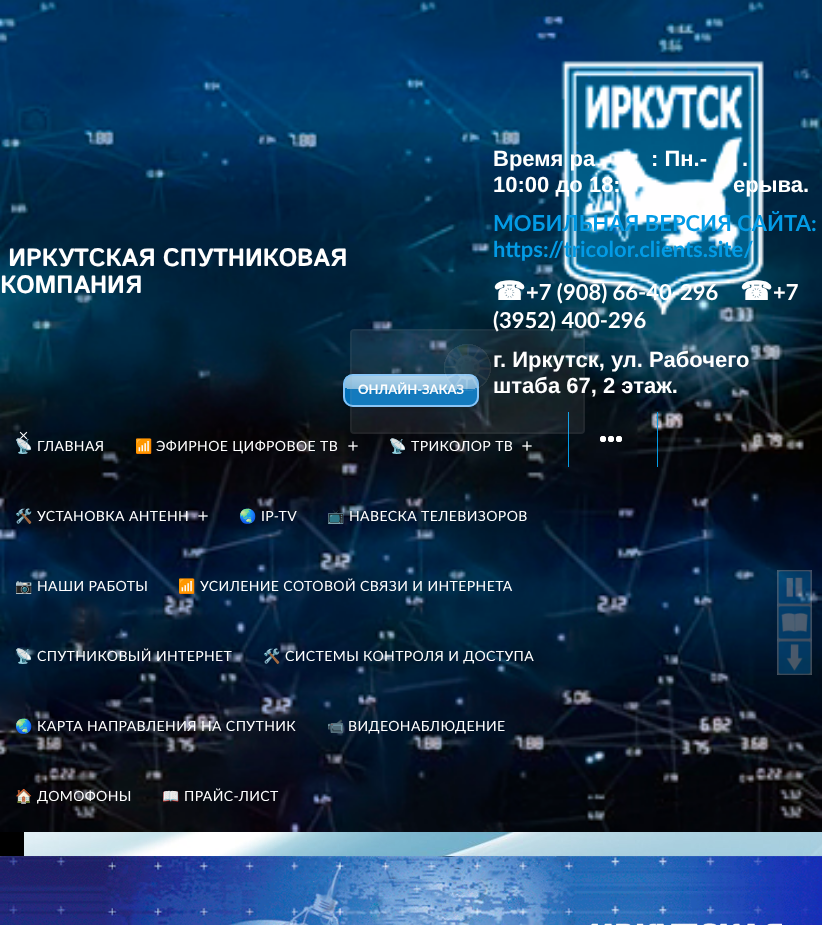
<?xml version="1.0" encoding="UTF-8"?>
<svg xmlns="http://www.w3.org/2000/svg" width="822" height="925">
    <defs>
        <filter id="blur1" x="-50%" y="-200%" width="200%" height="500%"><feGaussianBlur stdDeviation="2.5"/></filter>
        <clipPath id="clip1"><rect x="343" y="374" width="136" height="33" rx="10"/></clipPath>
        <radialGradient id="g1" gradientUnits="userSpaceOnUse" cx="0" cy="0" r="1" gradientTransform="matrix(251 0 0 29 411 376)"><stop offset="0" stop-color="#FFFFFF" stop-opacity="0.7"/><stop offset="0.5" stop-color="#FFFFFF" stop-opacity="0.5"/><stop offset="0.5" stop-color="#FFFFFF" stop-opacity="0"/></radialGradient>
    </defs>
    <rect width="100%" height="100%" fill="#FFFFFF"/>
    <image x="24" y="832" width="798" height="24" href="img_01.png"/>
    <image x="0" y="0" width="822" height="832" href="img_02.png"/>
    <text x="8" y="266" font-family="Istok Web" font-size="25" font-weight="700" letter-spacing="-0.5" fill="#FFFFFF">ИРКУТСКАЯ СПУТНИКОВАЯ</text>
    <text x="0" y="293" font-family="Istok Web" font-size="25" font-weight="700" letter-spacing="-0.5" fill="#FFFFFF">КОМПАНИЯ</text>
    <text x="493" y="166" font-family="Liberation Sans" font-size="22" font-weight="700" fill="#FFFFFF">Время ра</text>
    <text x="651" y="166" font-family="Liberation Sans" font-size="22" font-weight="700" fill="#FFFFFF">: Пн.-</text>
    <text x="742" y="166" font-family="Liberation Sans" font-size="22" font-weight="700" fill="#FFFFFF">.</text>
    <text x="493" y="192" font-family="Liberation Sans" font-size="22" font-weight="700" fill="#FFFFFF">10:00 до 18:</text>
    <text x="733" y="192" font-family="Liberation Sans" font-size="22" font-weight="700" fill="#FFFFFF">ерыва.</text>
    <text font-family="Lato" font-size="22" font-weight="700" fill="#039BE5">
        <tspan x="493" y="231">МОБИЛЬНАЯ ВЕРСИЯ САЙТА:</tspan>
        <tspan x="493" y="257">https://tricolor.clients.site/</tspan>
    </text>
    <text x="493" y="300" font-family="DejaVu Sans" font-size="26" font-weight="700" fill="#FFFFFF">☎</text>
    <text x="526" y="300" font-family="Lato" font-size="22" font-weight="700" fill="#FFFFFF">+7 (908) 66-40-296</text>
    <text x="740" y="300" font-family="DejaVu Sans" font-size="26" font-weight="700" fill="#FFFFFF">☎</text>
    <text x="773" y="300" font-family="Lato" font-size="22" font-weight="700" fill="#FFFFFF">+7</text>
    <text x="493" y="328" font-family="Lato" font-size="22" font-weight="700" fill="#FFFFFF">(3952) 400-296</text>
    <text font-family="Liberation Sans" font-size="22" font-weight="700" fill="#FFFFFF">
        <tspan x="493" y="367">г. Иркутск, ул. Рабочего</tspan>
        <tspan x="493" y="393">штаба 67, 2 этаж.</tspan>
    </text>
    <rect x="343" y="376" width="136" height="33" rx="10" fill="#000000" fill-opacity="0.3" filter="url(#blur1)"/>
    <rect x="343" y="374" width="136" height="33" rx="10" fill="#0070B9"/>
    <g clip-path="url(#clip1)">
        <rect x="345" y="376" width="132" height="14" fill="url(#g1)"/>
    </g>
    <rect x="344" y="375" width="134" height="31" rx="9" fill="none" stroke="#81C2F7" stroke-width="2"/>
    <text x="358" y="394" font-family="Lato" font-size="13" font-weight="700" fill="#FFFFFF">ОНЛАЙН-ЗАКАЗ</text>
    <image x="19" y="431" width="9" height="9" href="img_03.png"/>
    <text x="15" y="451" font-family="Noto Color Emoji" font-size="14" letter-spacing="0.4" fill="#FFFFFF">📡</text>
    <text x="37" y="451" font-family="Lato" font-size="14" letter-spacing="0.4" fill="#FFFFFF">ГЛАВНАЯ</text>
    <text x="135" y="451" font-family="Noto Color Emoji" font-size="14" letter-spacing="0.4" fill="#FFFFFF">📶</text>
    <text x="156" y="451" font-family="Lato" font-size="14" letter-spacing="0.4" fill="#FFFFFF">ЭФИРНОЕ ЦИФРОВОЕ ТВ</text>
    <image x="348" y="441" width="10" height="10" href="img_04.png"/>
    <text x="389" y="451" font-family="Noto Color Emoji" font-size="14" letter-spacing="0.4" fill="#FFFFFF">📡</text>
    <text x="411" y="451" font-family="Lato" font-size="14" letter-spacing="0.4" fill="#FFFFFF">ТРИКОЛОР ТВ</text>
    <image x="522" y="441" width="10" height="10" href="img_05.png"/>
    <rect x="657" y="412" width="1" height="55" fill="#039BE5"/>
    <rect x="568" y="412" width="1" height="55" fill="#039BE5"/>
    <rect x="600.5" y="436.5" width="5" height="5" rx="1.5" fill="#FFFFFF" stroke="#FFFFFF"/>
    <rect x="608.5" y="436.5" width="5" height="5" rx="1.5" fill="#FFFFFF" stroke="#FFFFFF"/>
    <rect x="616.5" y="436.5" width="5" height="5" rx="1.5" fill="#FFFFFF" stroke="#FFFFFF"/>
    <text x="15" y="521" font-family="Noto Color Emoji" font-size="14" letter-spacing="0.4" fill="#FFFFFF">🛠️</text>
    <text x="37" y="521" font-family="Lato" font-size="14" letter-spacing="0.4" fill="#FFFFFF">УСТАНОВКА АНТЕНН</text>
    <image x="198" y="511" width="10" height="10" href="img_06.png"/>
    <text x="239" y="521" font-family="Noto Color Emoji" font-size="14" letter-spacing="0.4" fill="#FFFFFF">🌏</text>
    <text x="261" y="521" font-family="Lato" font-size="14" letter-spacing="0.4" fill="#FFFFFF">IP-TV</text>
    <text x="327" y="521" font-family="Noto Color Emoji" font-size="14" letter-spacing="0.4" fill="#FFFFFF">📺</text>
    <text x="349" y="521" font-family="Lato" font-size="14" letter-spacing="0.4" fill="#FFFFFF">НАВЕСКА ТЕЛЕВИЗОРОВ</text>
    <text x="15" y="591" font-family="Noto Color Emoji" font-size="14" letter-spacing="0.4" fill="#FFFFFF">📷</text>
    <text x="37" y="591" font-family="Lato" font-size="14" letter-spacing="0.4" fill="#FFFFFF">НАШИ РАБОТЫ</text>
    <text x="178" y="591" font-family="Noto Color Emoji" font-size="14" letter-spacing="0.4" fill="#FFFFFF">📶</text>
    <text x="200" y="591" font-family="Lato" font-size="14" letter-spacing="0.4" fill="#FFFFFF">УСИЛЕНИЕ СОТОВОЙ СВЯЗИ И ИНТЕРНЕТА</text>
    <text x="15" y="661" font-family="Noto Color Emoji" font-size="14" letter-spacing="0.4" fill="#FFFFFF">📡</text>
    <text x="37" y="661" font-family="Lato" font-size="14" letter-spacing="0.4" fill="#FFFFFF">СПУТНИКОВЫЙ ИНТЕРНЕТ</text>
    <text x="263" y="661" font-family="Noto Color Emoji" font-size="14" letter-spacing="0.4" fill="#FFFFFF">🛠️</text>
    <text x="285" y="661" font-family="Lato" font-size="14" letter-spacing="0.4" fill="#FFFFFF">СИСТЕМЫ КОНТРОЛЯ И ДОСТУПА</text>
    <text x="15" y="731" font-family="Noto Color Emoji" font-size="14" letter-spacing="0.4" fill="#FFFFFF">🌏</text>
    <text x="37" y="731" font-family="Lato" font-size="14" letter-spacing="0.4" fill="#FFFFFF">КАРТА НАПРАВЛЕНИЯ НА СПУТНИК</text>
    <text x="327" y="731" font-family="Noto Color Emoji" font-size="14" letter-spacing="0.4" fill="#FFFFFF">📹</text>
    <text x="348" y="731" font-family="Lato" font-size="14" letter-spacing="0.4" fill="#FFFFFF">ВИДЕОНАБЛЮДЕНИЕ</text>
    <text x="15" y="801" font-family="Noto Color Emoji" font-size="14" letter-spacing="0.4" fill="#FFFFFF">🏠</text>
    <text x="37" y="801" font-family="Lato" font-size="14" letter-spacing="0.4" fill="#FFFFFF">ДОМОФОНЫ</text>
    <text x="162" y="801" font-family="Noto Color Emoji" font-size="14" letter-spacing="0.4" fill="#FFFFFF">📖</text>
    <text x="184" y="801" font-family="Lato" font-size="14" letter-spacing="0.4" fill="#FFFFFF">ПРАЙС-ЛИСТ</text>
    <rect x="350" y="329" width="235" height="105" rx="4" fill="#F4F4F4" fill-opacity="0.08"/>
    <rect x="351" y="330" width="233" height="103" rx="3" fill="none" stroke="#9B9B9B" stroke-opacity="0.08" stroke-width="2"/>
    <image x="444" y="344" width="47" height="47" href="img_07.png"/>
    <image x="777" y="570" width="35" height="35" href="img_08.png"/>
    <image x="777" y="605" width="35" height="35" href="img_09.png"/>
    <image x="777" y="640" width="35" height="35" href="img_10.png"/>
    <rect x="0" y="832" width="24" height="24" fill="#000000"/>
    <image x="0" y="856" width="822" height="69" href="img_11.png"/>
</svg>
